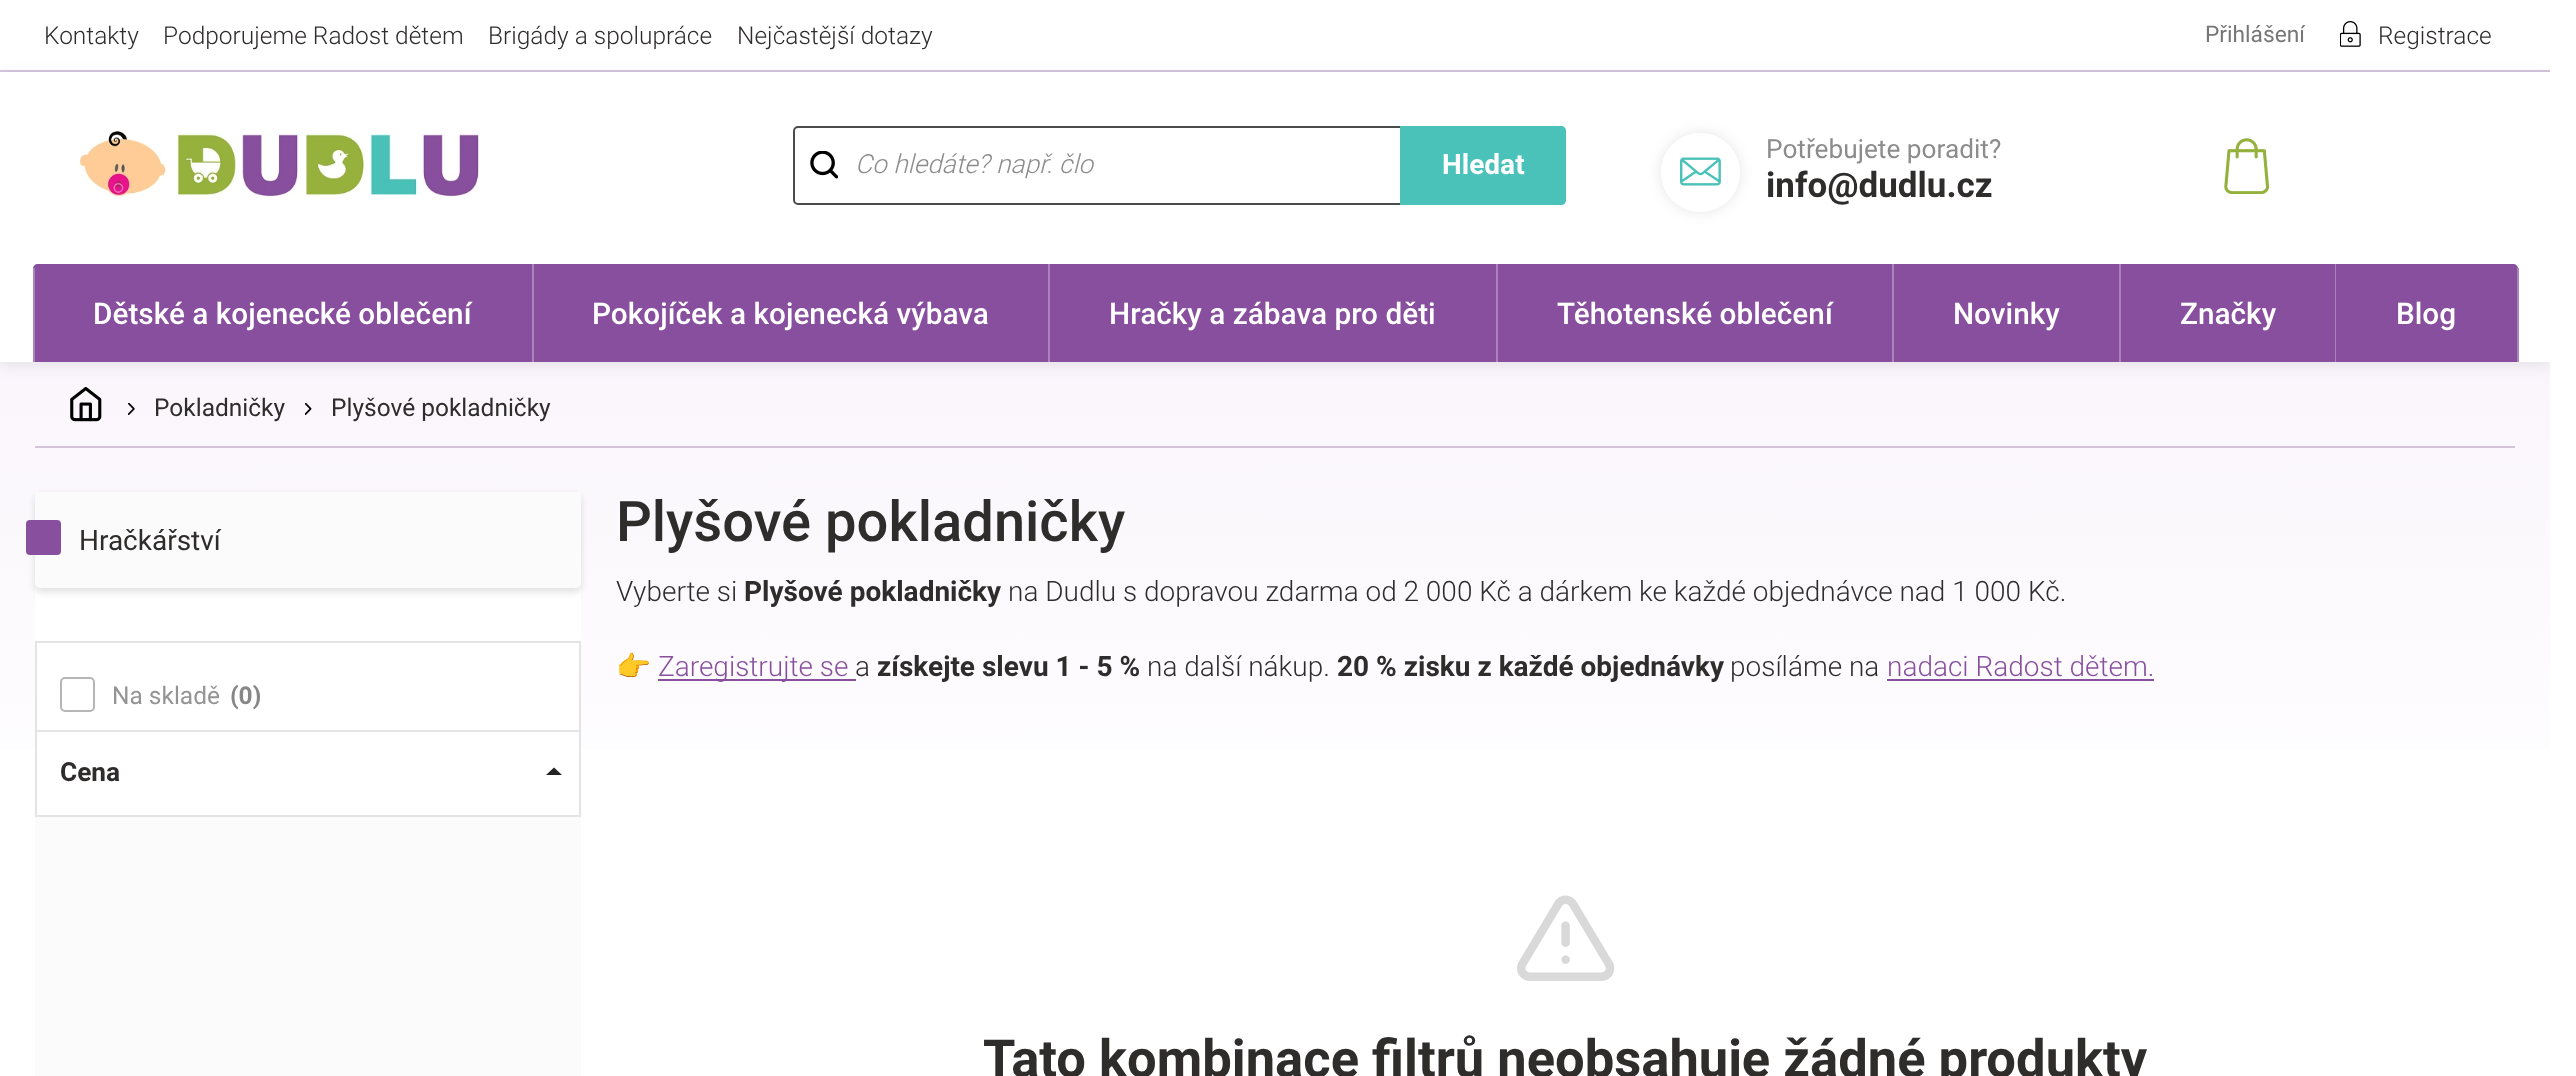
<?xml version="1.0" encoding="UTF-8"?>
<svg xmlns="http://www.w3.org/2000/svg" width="2576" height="1076">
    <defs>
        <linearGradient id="g1" gradientUnits="userSpaceOnUse" x1="3" y1="72" x2="3" y2="884"><stop offset="0" stop-color="#F7F0FA"/><stop offset="1" stop-color="#FFFFFF"/></linearGradient>
        <clipPath id="clip1"><rect x="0" y="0" width="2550" height="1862"/></clipPath>
        <filter id="blur1" x="-50%" y="-200%" width="200%" height="500%"><feGaussianBlur stdDeviation="7"/></filter>
        <clipPath id="clip2"><path d="M 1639 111 H 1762 V 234 H 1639 Z M 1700.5 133 C 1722.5 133 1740 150.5 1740 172.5 C 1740 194.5 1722.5 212 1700.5 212 C 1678.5 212 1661 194.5 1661 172.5 C 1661 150.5 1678.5 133 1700.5 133 Z" clip-rule="evenodd"/></clipPath>
        <filter id="blur2" x="-50%" y="-200%" width="200%" height="500%"><feGaussianBlur stdDeviation="3.5"/></filter>
    </defs>
    <rect width="100%" height="100%" fill="#FFFFFF"/>
    <rect x="0" y="70" width="2550" height="2" fill="#D4C5DC"/>
    <text x="44" y="44" font-family="Roboto" font-size="24.5" font-weight="300" fill="#2F2C2C">Kontakty</text>
    <text x="163" y="44" font-family="Roboto" font-size="24.5" font-weight="300" fill="#2F2C2C">Podporujeme Radost dětem</text>
    <text x="488" y="44" font-family="Roboto" font-size="24.5" font-weight="300" fill="#2F2C2C">Brigády a spolupráce</text>
    <text x="737" y="44" font-family="Roboto" font-size="24.5" font-weight="300" fill="#2F2C2C">Nejčastější dotazy</text>
    <text x="2205" y="42" font-family="Roboto" font-size="22.75" fill="#767676">Přihlášení</text>
    <image x="2340" y="21" width="21" height="26" href="img_01.png"/>
    <text x="2378" y="44" font-family="Roboto" font-size="24.5" font-weight="300" fill="#2F2C2C">Registrace</text>
    <rect x="0" y="362" width="2550" height="387" fill="url(#g1)"/>
    <g clip-path="url(#clip1)">
        <rect x="0" y="75" width="2550" height="291" fill="#000000" fill-opacity="0.08" filter="url(#blur1)"/>
    </g>
    <rect x="0" y="72" width="2550" height="290" fill="#FFFFFF"/>
    <image x="79" y="131" width="400" height="66" href="img_02.png"/>
    <rect x="794" y="127" width="770" height="77" rx="4" fill="none" stroke="#4B4B4B" stroke-width="2"/>
    <image x="810" y="151" width="28" height="28" href="img_03.png"/>
    <text x="855" y="173" font-family="Roboto" font-size="26.25" font-weight="300" font-style="italic" fill="#8C8C8C">Co hledáte? např. člo</text>
    <path d="M 1400 126 H 1561 C 1564 126 1566 128 1566 131 V 200 C 1566 203 1564 205 1561 205 H 1400 Z" fill="#4AC1B9"/>
    <text x="1442" y="174" font-family="Roboto" font-size="28" font-weight="700" fill="#FFFFFF">Hledat</text>
    <g clip-path="url(#clip2)">
        <rect x="1661" y="133" width="79" height="79" rx="39.5" fill="#000000" fill-opacity="0.1" filter="url(#blur1)"/>
    </g>
    <image x="1680" y="157" width="50" height="46" href="img_04.png"/>
    <text x="1766" y="158" font-family="Roboto" font-size="26.25" fill="#8C8C8C">Potřebujete poradit?</text>
    <text x="1766" y="197" font-family="Roboto" font-size="35" font-weight="700" fill="#2F2C2C">info@dudlu.cz</text>
    <image x="2224" y="138" width="46" height="56" href="img_05.png"/>
    <path d="M 38 264 H 534 V 362 H 33 V 269 C 33 266 35 264 38 264 Z" fill="#884F9E"/>
    <rect x="532" y="264" width="2" height="98" fill="#AB82BA"/>
    <rect x="33" y="268" width="2" height="94" fill="#AB82BA"/>
    <text x="93" y="324" font-family="Roboto" font-size="29.75" font-weight="500" fill="#FFFFFF">Dětské a kojenecké oblečení</text>
    <rect x="534" y="264" width="514" height="98" fill="#884F9E"/>
    <rect x="1048" y="264" width="2" height="98" fill="#AB82BA"/>
    <text x="592" y="324" font-family="Roboto" font-size="29.75" font-weight="500" fill="#FFFFFF">Pokojíček a kojenecká výbava</text>
    <rect x="1050" y="264" width="446" height="98" fill="#884F9E"/>
    <rect x="1496" y="264" width="2" height="98" fill="#AB82BA"/>
    <text x="1109" y="324" font-family="Roboto" font-size="29.75" font-weight="500" fill="#FFFFFF">Hračky a zábava pro děti</text>
    <rect x="1498" y="264" width="394" height="98" fill="#884F9E"/>
    <rect x="1892" y="264" width="2" height="98" fill="#AB82BA"/>
    <text x="1557" y="324" font-family="Roboto" font-size="29.75" font-weight="500" fill="#FFFFFF">Těhotenské oblečení</text>
    <rect x="1894" y="264" width="225" height="98" fill="#884F9E"/>
    <rect x="2119" y="264" width="2" height="98" fill="#AB82BA"/>
    <text x="1953" y="324" font-family="Roboto" font-size="29.75" font-weight="500" fill="#FFFFFF">Novinky</text>
    <rect x="2121" y="264" width="214" height="98" fill="#884F9E"/>
    <rect x="2335" y="264" width="1" height="98" fill="#AB82BA"/>
    <text x="2180" y="324" font-family="Roboto" font-size="29.75" font-weight="500" fill="#FFFFFF">Značky</text>
    <path d="M 2336 264 H 2513 C 2516 264 2518 266 2518 269 V 362 H 2336 Z" fill="#884F9E"/>
    <rect x="2517" y="268" width="2" height="94" fill="#AB82BA"/>
    <text x="2396" y="324" font-family="Roboto" font-size="29.75" font-weight="500" fill="#FFFFFF">Blog</text>
    <rect x="35" y="446" width="2480" height="2" fill="#D4C5DC"/>
    <image x="70" y="387" width="32" height="35" href="img_06.png"/>
    <image x="128" y="403" width="7" height="12" href="img_07.png"/>
    <text x="154" y="416" font-family="Roboto" font-size="24.5" fill="#2F2C2C">Pokladničky</text>
    <image x="305" y="403" width="7" height="12" href="img_08.png"/>
    <text x="331" y="416" font-family="Roboto" font-size="24.5" fill="#2F2C2C">Plyšové pokladničky</text>
    <rect x="35" y="817" width="546" height="259" fill="#FBFBFB"/>
    <rect x="35" y="492" width="546" height="149" fill="#FFFFFF"/>
    <rect x="35" y="495" width="546" height="97" rx="5" fill="#000000" fill-opacity="0.12" filter="url(#blur2)"/>
    <rect x="35" y="492" width="546" height="96" rx="5" fill="#FBFBFB"/>
    <rect x="26" y="520" width="35" height="35" rx="4" fill="#884F9E"/>
    <text x="79" y="550" font-family="Roboto" font-size="28" fill="#2F2C2C">Hračkářství</text>
    <rect x="37" y="643" width="542" height="106" fill="#FFFFFF"/>
    <rect x="35" y="641" width="546" height="2" fill="#E4E4E4"/>
    <rect x="579" y="641" width="2" height="89" fill="#E4E4E4"/>
    <rect x="35" y="641" width="2" height="89" fill="#E4E4E4"/>
    <rect x="61" y="678" width="33" height="33" rx="4" fill="none" stroke="#B6B6B6" stroke-width="2"/>
    <text x="112" y="704" font-family="Roboto" font-size="24.5" fill="#949494">Na skladě</text>
    <text x="230" y="704" font-family="Roboto" font-size="24.5" font-weight="700" fill="#868686">(0)</text>
    <rect x="36" y="731" width="544" height="85" fill="none" stroke="#E4E4E4" stroke-width="2"/>
    <text x="60" y="781" font-family="Roboto" font-size="26.25" font-weight="700" fill="#2F2C2C">Cena</text>
    <path d="M 562 775 L 554 767.5 L 546 775 Z" fill="#232323"/>
    <text x="616" y="541" font-family="Roboto" font-size="56" font-weight="500" fill="#2F2C2C">Plyšové pokladničky</text>
    <text x="616" y="601" font-family="Roboto" font-size="28" font-weight="300" fill="#2F2C2C">Vyberte si</text>
    <text x="744" y="601" font-family="Roboto" font-size="28" font-weight="700" fill="#2F2C2C">Plyšové pokladničky</text>
    <text x="1008" y="601" font-family="Roboto" font-size="28" font-weight="300" fill="#2F2C2C">na Dudlu s dopravou zdarma od 2 000 Kč a dárkem ke každé objednávce nad 1 000 Kč.</text>
    <text x="616" y="676" font-family="Noto Color Emoji" font-size="28" font-weight="700" fill="#2F2C2C">👉</text>
    <rect x="658" y="679" width="198" height="2" fill="#884F9E"/>
    <text x="658" y="676" font-family="Roboto" font-size="28" font-weight="300" fill="#884F9E">Zaregistrujte se</text>
    <text x="855" y="676" font-family="Roboto" font-size="28" font-weight="300" fill="#2F2C2C">a</text>
    <text x="877" y="676" font-family="Roboto" font-size="28" font-weight="700" fill="#2F2C2C">získejte slevu 1 - 5 %</text>
    <text x="1147" y="676" font-family="Roboto" font-size="28" font-weight="300" fill="#2F2C2C">na další nákup.</text>
    <text x="1337" y="676" font-family="Roboto" font-size="28" font-weight="700" fill="#2F2C2C">20 % zisku z každé objednávky</text>
    <text x="1730" y="676" font-family="Roboto" font-size="28" font-weight="300" fill="#2F2C2C">posíláme na</text>
    <text x="1887" y="676" font-family="Roboto" font-size="28" font-weight="300" fill="#884F9E">nadaci Radost dětem.</text>
    <rect x="1887" y="679" width="267" height="2" fill="#884F9E"/>
    <image x="1517" y="895" width="98" height="86" href="img_09.png"/>
    <text x="983" y="1077" font-family="Roboto" font-size="52.5" font-weight="700" fill="#2F2C2C">Tato kombinace filtrů neobsahuje žádné produkty</text>
</svg>
